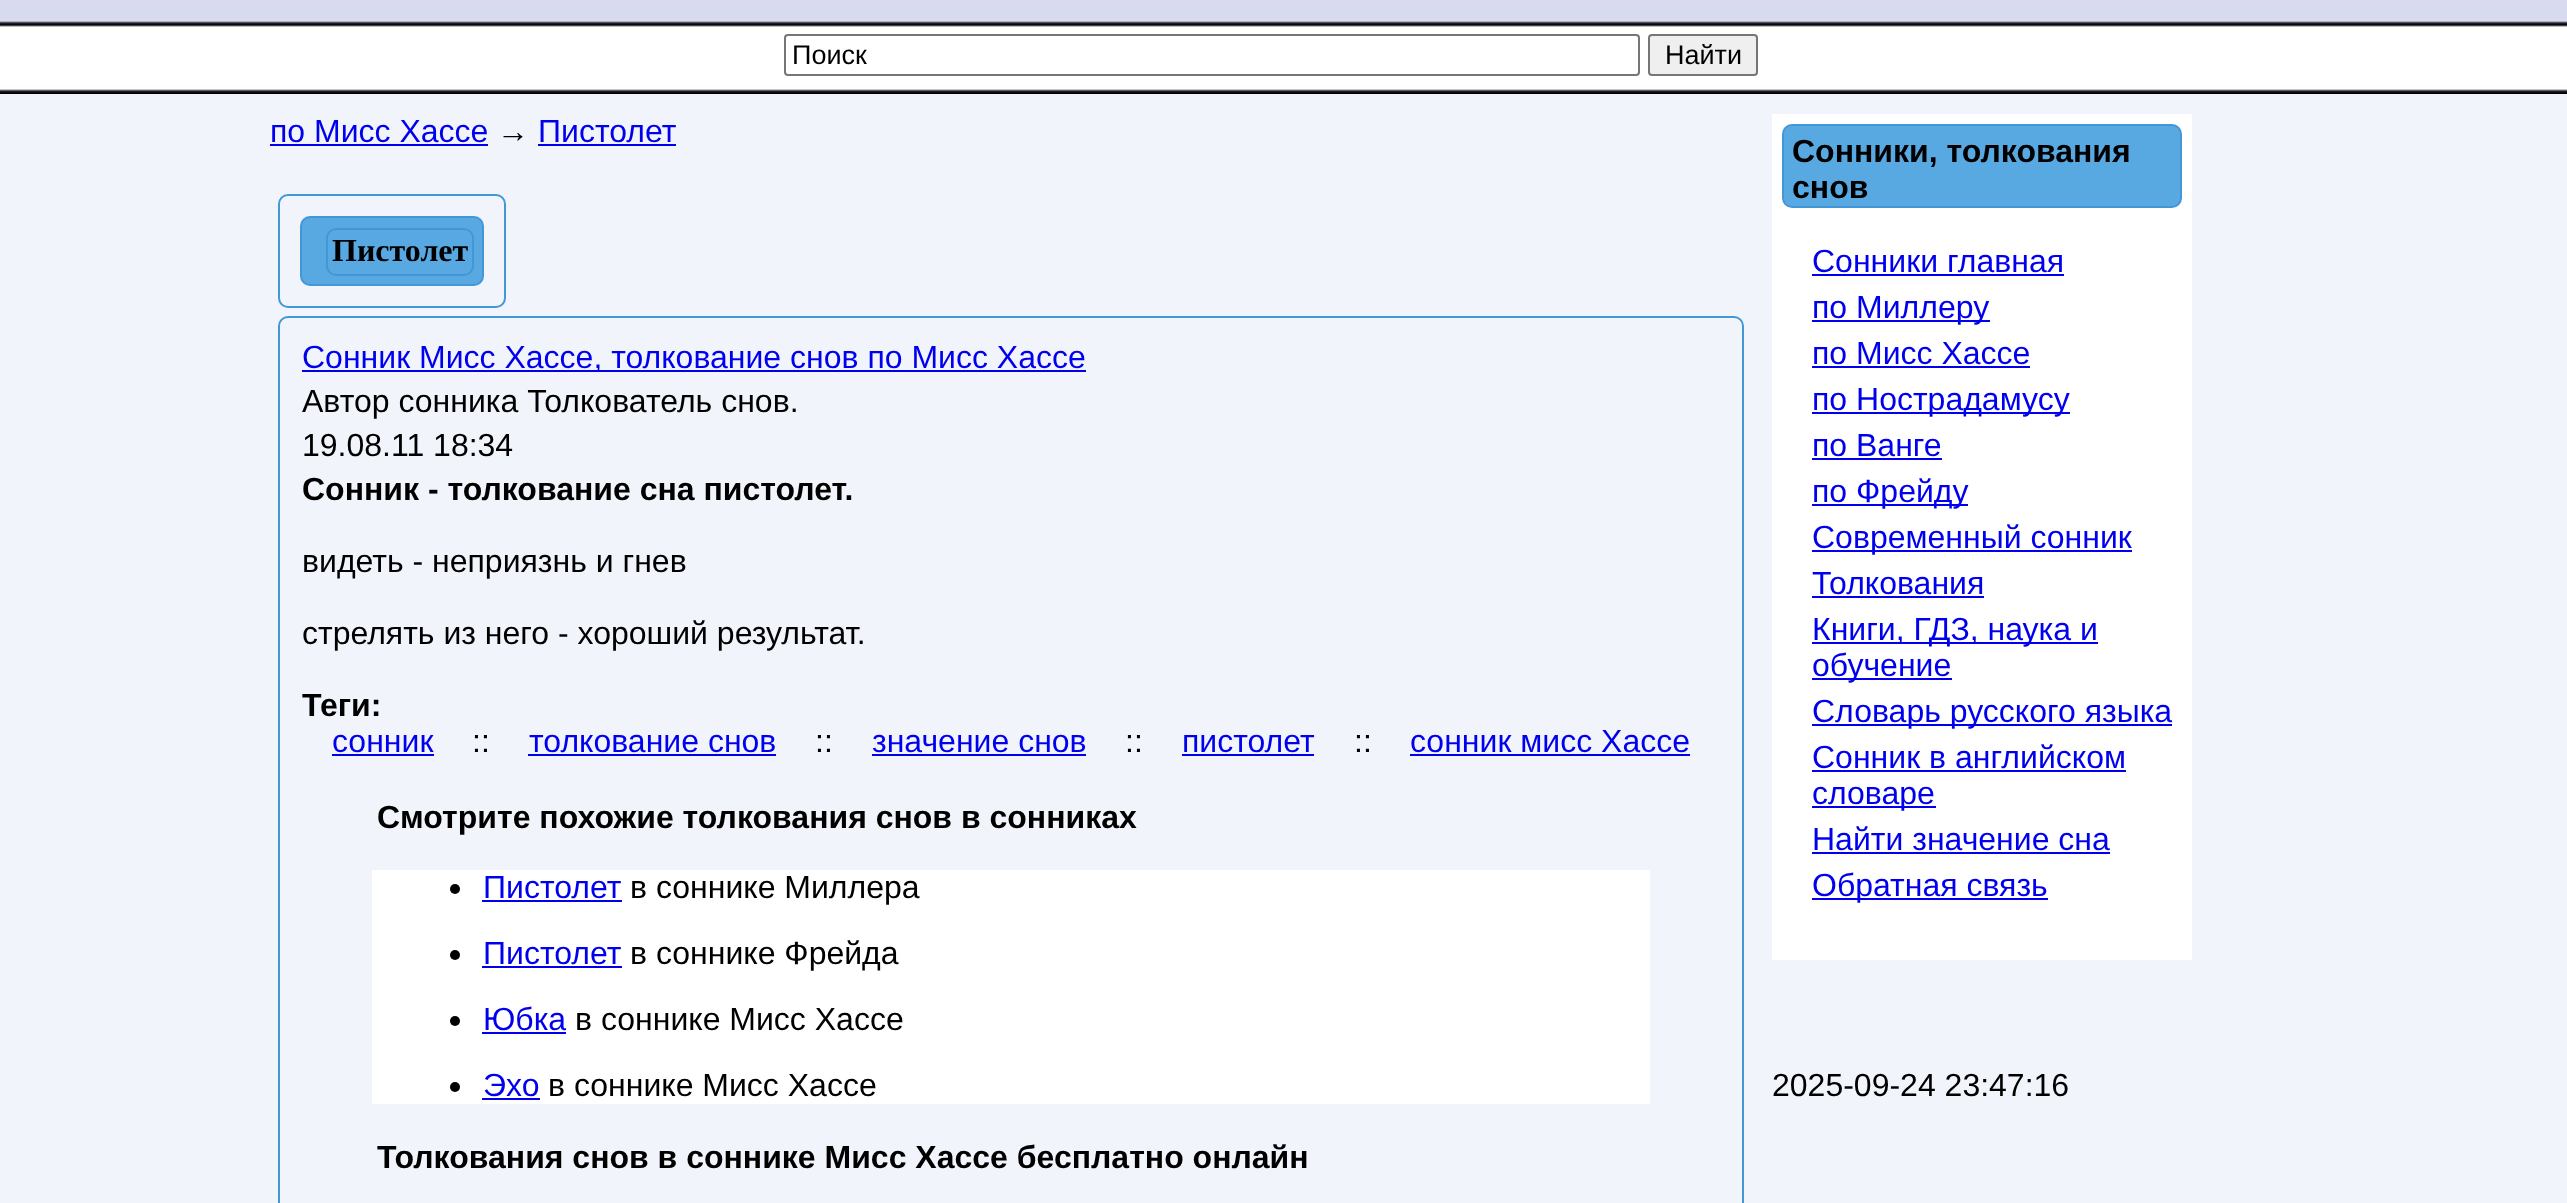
<?xml version="1.0" encoding="UTF-8"?>
<svg xmlns="http://www.w3.org/2000/svg" width="2567" height="1203">
    <rect width="100%" height="100%" fill="#F2F4FB"/>
    <image x="0" y="0" width="2567" height="94" href="img_01.png"/>
    <rect x="785" y="35" width="854" height="40" rx="3" fill="none" stroke="#767676" stroke-width="2"/>
    <text x="792" y="64" font-family="Liberation Sans" font-size="27" fill="#000000">Поиск</text>
    <rect x="1649" y="35" width="108" height="40" rx="3" fill="#EFEFEF" stroke="#767676" stroke-width="2"/>
    <text x="1665" y="64" font-family="Liberation Sans" font-size="27" fill="#000000">Найти</text>
    <text x="270" y="142" font-family="Liberation Sans" font-size="32" fill="#0000EE">по Мисс Хассе</text>
    <rect x="270" y="144" width="218" height="2" fill="#0000EE"/>
    <text x="497" y="142" font-family="Liberation Sans" font-size="32" fill="#000000">→</text>
    <text x="538" y="142" font-family="Liberation Sans" font-size="32" fill="#0000EE">Пистолет</text>
    <rect x="538" y="144" width="138" height="2" fill="#0000EE"/>
    <rect x="279" y="195" width="226" height="112" rx="9" fill="none" stroke="#4297D7" stroke-width="2"/>
    <rect x="301" y="217" width="182" height="68" rx="9" fill="#58A8E2" stroke="#4297D7" stroke-width="2"/>
    <rect x="327" y="229" width="146" height="46" rx="9" fill="none" stroke="#4297D7" stroke-width="2"/>
    <text x="332" y="261" font-family="Liberation Serif" font-size="32" font-weight="700" fill="#000000">Пистолет</text>
    <rect x="279" y="317" width="1464" height="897" rx="9" fill="none" stroke="#4297D7" stroke-width="2"/>
    <rect x="302" y="370" width="784" height="2" fill="#0000EE"/>
    <text x="302" y="368" font-family="Liberation Sans" font-size="32" fill="#0000EE">Сонник Мисс Хассе, толкование снов по Мисс Хассе</text>
    <text font-family="Liberation Sans" font-size="32" fill="#000000">
        <tspan x="302" y="412">Автор сонника Толкователь снов.</tspan>
        <tspan x="302" y="456">19.08.11 18:34</tspan>
    </text>
    <text x="302" y="500" font-family="Liberation Sans" font-size="32" font-weight="700" fill="#000000">Сонник - толкование сна пистолет.</text>
    <text x="302" y="572" font-family="Liberation Sans" font-size="32" fill="#000000">видеть - неприязнь и гнев</text>
    <text x="302" y="644" font-family="Liberation Sans" font-size="32" fill="#000000">стрелять из него - хороший результат.</text>
    <text x="302" y="716" font-family="Liberation Sans" font-size="32" font-weight="700" fill="#000000">Теги:</text>
    <text x="332" y="752" font-family="Liberation Sans" font-size="32" fill="#0000EE">сонник</text>
    <rect x="332" y="754" width="102" height="2" fill="#0000EE"/>
    <text x="472" y="752" font-family="Liberation Sans" font-size="32" fill="#000000">::</text>
    <text x="529" y="752" font-family="Liberation Sans" font-size="32" fill="#0000EE">толкование снов</text>
    <rect x="528" y="754" width="248" height="2" fill="#0000EE"/>
    <text x="815" y="752" font-family="Liberation Sans" font-size="32" fill="#000000">::</text>
    <text x="872" y="752" font-family="Liberation Sans" font-size="32" fill="#0000EE">значение снов</text>
    <rect x="872" y="754" width="214" height="2" fill="#0000EE"/>
    <text x="1125" y="752" font-family="Liberation Sans" font-size="32" fill="#000000">::</text>
    <text x="1182" y="752" font-family="Liberation Sans" font-size="32" fill="#0000EE">пистолет</text>
    <rect x="1182" y="754" width="132" height="2" fill="#0000EE"/>
    <text x="1354" y="752" font-family="Liberation Sans" font-size="32" fill="#000000">::</text>
    <text x="1410" y="752" font-family="Liberation Sans" font-size="32" fill="#0000EE">сонник мисс Хассе</text>
    <rect x="1410" y="754" width="280" height="2" fill="#0000EE"/>
    <text x="377" y="828" font-family="Liberation Sans" font-size="32" font-weight="700" fill="#000000">Смотрите похожие толкования снов в сонниках</text>
    <rect x="372" y="870" width="1278" height="234" fill="#FFFFFF"/>
    <circle cx="455" cy="889" r="5" fill="#000000"/>
    <text x="483" y="898" font-family="Liberation Sans" font-size="32" fill="#0000EE">Пистолет</text>
    <rect x="482" y="900" width="140" height="2" fill="#0000EE"/>
    <text x="630" y="898" font-family="Liberation Sans" font-size="32" fill="#000000">в соннике Миллера</text>
    <circle cx="455" cy="955" r="5" fill="#000000"/>
    <text x="483" y="964" font-family="Liberation Sans" font-size="32" fill="#0000EE">Пистолет</text>
    <rect x="482" y="966" width="140" height="2" fill="#0000EE"/>
    <text x="630" y="964" font-family="Liberation Sans" font-size="32" fill="#000000">в соннике Фрейда</text>
    <circle cx="455" cy="1021" r="5" fill="#000000"/>
    <text x="483" y="1030" font-family="Liberation Sans" font-size="32" fill="#0000EE">Юбка</text>
    <rect x="482" y="1032" width="84" height="2" fill="#0000EE"/>
    <text x="575" y="1030" font-family="Liberation Sans" font-size="32" fill="#000000">в соннике Мисс Хассе</text>
    <circle cx="455" cy="1087" r="5" fill="#000000"/>
    <text x="483" y="1096" font-family="Liberation Sans" font-size="32" fill="#0000EE">Эхо</text>
    <rect x="482" y="1098" width="58" height="2" fill="#0000EE"/>
    <text x="548" y="1096" font-family="Liberation Sans" font-size="32" fill="#000000">в соннике Мисс Хассе</text>
    <text x="377" y="1168" font-family="Liberation Sans" font-size="32" font-weight="700" fill="#000000">Толкования снов в соннике Мисс Хассе бесплатно онлайн</text>
    <rect x="1772" y="114" width="420" height="846" fill="#FFFFFF"/>
    <rect x="1783" y="125" width="398" height="82" rx="9" fill="#58A8E2" stroke="#4297D7" stroke-width="2"/>
    <text font-family="Liberation Sans" font-size="32" font-weight="700" fill="#000000">
        <tspan x="1792" y="162">Сонники, толкования</tspan>
        <tspan x="1792" y="198">снов</tspan>
    </text>
    <text x="1812" y="272" font-family="Liberation Sans" font-size="32" fill="#0000EE">Сонники главная</text>
    <rect x="1812" y="274" width="252" height="2" fill="#0000EE"/>
    <rect x="1812" y="320" width="178" height="2" fill="#0000EE"/>
    <text font-family="Liberation Sans" font-size="32" fill="#0000EE">
        <tspan x="1812" y="318">по Миллеру</tspan>
        <tspan x="1812" y="364">по Мисс Хассе</tspan>
    </text>
    <rect x="1812" y="366" width="218" height="2" fill="#0000EE"/>
    <rect x="1812" y="412" width="258" height="2" fill="#0000EE"/>
    <text font-family="Liberation Sans" font-size="32" fill="#0000EE">
        <tspan x="1812" y="410">по Нострадамусу</tspan>
        <tspan x="1812" y="456">по Ванге</tspan>
    </text>
    <rect x="1812" y="458" width="130" height="2" fill="#0000EE"/>
    <rect x="1812" y="504" width="156" height="2" fill="#0000EE"/>
    <text x="1812" y="502" font-family="Liberation Sans" font-size="32" fill="#0000EE">по Фрейду</text>
    <rect x="1812" y="550" width="320" height="2" fill="#0000EE"/>
    <text font-family="Liberation Sans" font-size="32" fill="#0000EE">
        <tspan x="1812" y="548">Современный сонник</tspan>
        <tspan x="1812" y="594">Толкования</tspan>
    </text>
    <rect x="1812" y="596" width="172" height="2" fill="#0000EE"/>
    <rect x="1812" y="642" width="286" height="2" fill="#0000EE"/>
    <text x="1812" y="640" font-family="Liberation Sans" font-size="32" fill="#0000EE">Книги, ГДЗ, наука и</text>
    <rect x="1812" y="678" width="140" height="2" fill="#0000EE"/>
    <text x="1812" y="676" font-family="Liberation Sans" font-size="32" fill="#0000EE">обучение</text>
    <rect x="1812" y="724" width="360" height="2" fill="#0000EE"/>
    <text font-family="Liberation Sans" font-size="32" fill="#0000EE">
        <tspan x="1812" y="722">Словарь русского языка</tspan>
        <tspan x="1812" y="768">Сонник в английском</tspan>
    </text>
    <rect x="1812" y="770" width="314" height="2" fill="#0000EE"/>
    <rect x="1812" y="806" width="124" height="2" fill="#0000EE"/>
    <text font-family="Liberation Sans" font-size="32" fill="#0000EE">
        <tspan x="1812" y="804">словаре</tspan>
        <tspan x="1812" y="850">Найти значение сна</tspan>
    </text>
    <rect x="1812" y="852" width="298" height="2" fill="#0000EE"/>
    <rect x="1812" y="898" width="236" height="2" fill="#0000EE"/>
    <text x="1812" y="896" font-family="Liberation Sans" font-size="32" fill="#0000EE">Обратная связь</text>
    <text x="1772" y="1096" font-family="Liberation Sans" font-size="32" fill="#000000">2025-09-24 23:47:16</text>
</svg>
